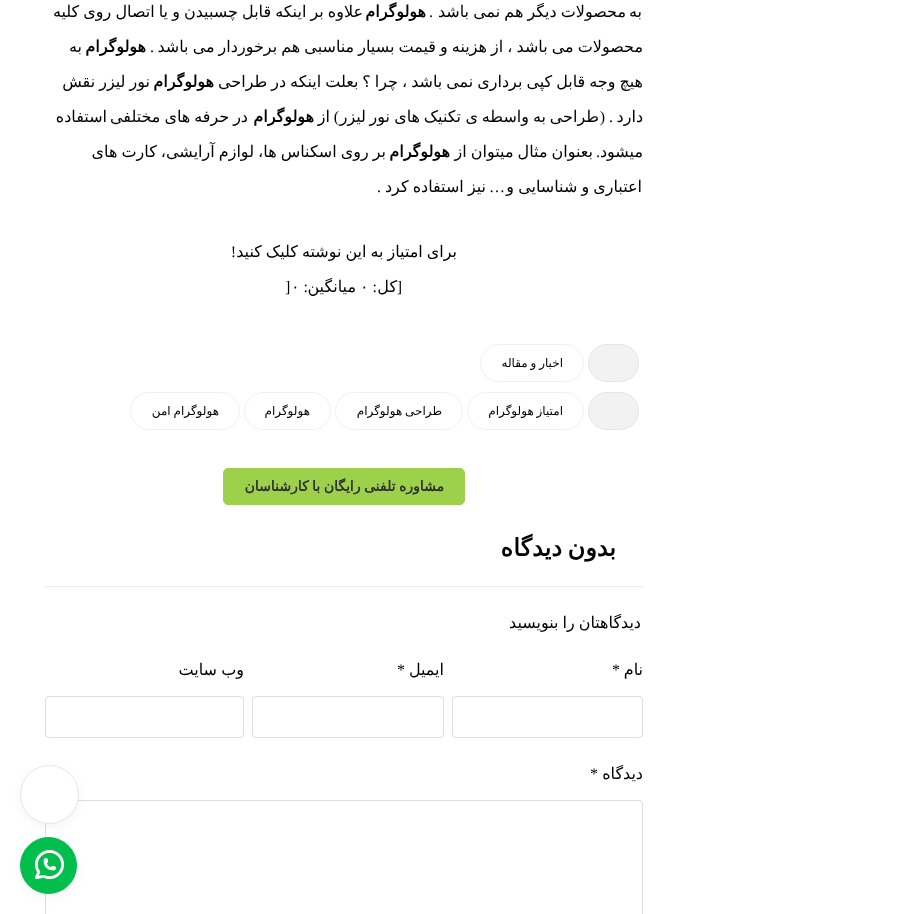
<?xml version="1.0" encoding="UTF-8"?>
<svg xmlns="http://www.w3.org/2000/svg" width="898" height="914">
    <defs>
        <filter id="blur1" x="-50%" y="-200%" width="200%" height="500%"><feGaussianBlur stdDeviation="5"/></filter>
    </defs>
    <rect width="100%" height="100%" fill="#FFFFFF"/>
    <text x="642" y="17" font-family="DejaVu Sans" font-size="16" direction="rtl" fill="#000000">به</text>
    <text x="626" y="17" word-spacing="-1" font-family="DejaVu Sans" font-size="16" direction="rtl" fill="#000000">محصولات دیگر هم نمی باشد</text>
    <text x="433" y="17" font-family="Liberation Serif" font-size="16" direction="rtl" fill="#000000">.</text>
    <text x="426" y="17" font-family="DejaVu Sans" font-size="16" font-weight="700" direction="rtl" fill="#000000">هولوگرام</text>
    <text x="363" y="17" word-spacing="-1" font-family="DejaVu Sans" font-size="16" direction="rtl" fill="#000000">علاوه بر اینکه قابل چسبیدن و یا اتصال روی کلیه</text>
    <text x="643" y="52" word-spacing="-1" font-family="DejaVu Sans" font-size="16" direction="rtl" fill="#000000">محصولات می باشد ، از هزینه و قیمت بسیار مناسبی هم برخوردار می باشد</text>
    <text x="154" y="52" font-family="Liberation Serif" font-size="16" direction="rtl" fill="#000000">.</text>
    <text x="146" y="52" font-family="DejaVu Sans" font-size="16" font-weight="700" direction="rtl" fill="#000000">هولوگرام</text>
    <text x="82" y="52" font-family="DejaVu Sans" font-size="16" direction="rtl" fill="#000000">به</text>
    <text x="643" y="87" word-spacing="-1.1" font-family="DejaVu Sans" font-size="16" direction="rtl" fill="#000000">هیچ وجه قابل کپی برداری نمی باشد ، چرا ؟ بعلت اینکه در طراحی</text>
    <text x="214" y="87" font-family="DejaVu Sans" font-size="16" font-weight="700" direction="rtl" fill="#000000">هولوگرام</text>
    <text x="150" y="87" word-spacing="-1" font-family="DejaVu Sans" font-size="16" direction="rtl" fill="#000000">نور لیزر نقش</text>
    <text x="643" y="122" font-family="DejaVu Sans" font-size="16" direction="rtl" fill="#000000">دارد</text>
    <text x="613" y="122" font-family="Liberation Serif" font-size="16" direction="rtl" fill="#000000">. (</text>
    <text x="599" y="122" font-family="DejaVu Sans" font-size="16" direction="rtl" fill="#000000">طراحی</text>
    <text x="546" y="122" font-family="DejaVu Sans" font-size="16" direction="rtl" fill="#000000">به</text>
    <text x="529" y="122" font-family="DejaVu Sans" font-size="16" direction="rtl" fill="#000000">واسطه</text>
    <text x="478" y="122" font-family="DejaVu Sans" font-size="16" direction="rtl" fill="#000000">ی</text>
    <text x="461" y="122" font-family="DejaVu Sans" font-size="16" direction="rtl" fill="#000000">تکنیک</text>
    <text x="420" y="122" font-family="DejaVu Sans" font-size="16" direction="rtl" fill="#000000">های</text>
    <text x="390" y="122" font-family="DejaVu Sans" font-size="16" direction="rtl" fill="#000000">نور</text>
    <text x="339" y="122" font-family="Liberation Serif" font-size="16" direction="rtl" fill="#000000">)</text>
    <text x="366" y="122" font-family="DejaVu Sans" font-size="16" direction="rtl" fill="#000000">لیزر</text>
    <text x="330" y="122" font-family="DejaVu Sans" font-size="16" direction="rtl" fill="#000000">از</text>
    <text x="314" y="122" font-family="DejaVu Sans" font-size="16" font-weight="700" direction="rtl" fill="#000000">هولوگرام</text>
    <text x="248" y="122" word-spacing="-1.1" font-family="DejaVu Sans" font-size="16" direction="rtl" fill="#000000">در حرفه های مختلفی</text>
    <text x="107" y="122" font-family="DejaVu Sans" font-size="16" direction="rtl" fill="#000000">استفاده</text>
    <text x="643" y="157" font-family="DejaVu Sans" font-size="16" direction="rtl" fill="#000000">میشود</text>
    <text x="600" y="157" font-family="Liberation Serif" font-size="16" direction="rtl" fill="#000000">.</text>
    <text x="593" y="157" word-spacing="-1" font-family="DejaVu Sans" font-size="16" direction="rtl" fill="#000000">بعنوان مثال میتوان از</text>
    <text x="450" y="157" font-family="DejaVu Sans" font-size="16" font-weight="700" direction="rtl" fill="#000000">هولوگرام</text>
    <text x="386" y="157" word-spacing="-1" font-family="DejaVu Sans" font-size="16" direction="rtl" fill="#000000">بر روی اسکناس ها، لوازم آرایشی، کارت های</text>
    <text x="642" y="192" word-spacing="-1" font-family="DejaVu Sans" font-size="16" direction="rtl" fill="#000000">اعتباری و شناسایی و</text>
    <text x="505" y="192" font-family="Liberation Serif" font-size="16" direction="rtl" fill="#000000">…</text>
    <text x="486" y="192" word-spacing="-1" font-family="DejaVu Sans" font-size="16" direction="rtl" fill="#000000">نیز استفاده کرد</text>
    <text x="381" y="192" font-family="Liberation Serif" font-size="16" direction="rtl" fill="#000000">.</text>
    <text x="457" y="257" word-spacing="-1.1" font-family="DejaVu Sans" font-size="16" direction="rtl" fill="#000000">برای امتیاز به این نوشته کلیک کنید</text>
    <text x="236" y="257" font-family="Liberation Serif" font-size="16" direction="rtl" fill="#000000">!</text>
    <text x="402" y="292" font-family="Liberation Serif" font-size="16" direction="rtl" fill="#000000">[</text>
    <text x="397" y="292" font-family="DejaVu Sans" font-size="16" direction="rtl" fill="#000000">کل</text>
    <text x="377" y="292" font-family="Liberation Serif" font-size="16" direction="rtl" fill="#000000">:</text>
    <text x="360" y="292" font-family="DejaVu Sans" font-size="16" fill="#000000">۰</text>
    <text x="356" y="292" font-family="DejaVu Sans" font-size="16" direction="rtl" fill="#000000">میانگین</text>
    <text x="308" y="292" font-family="Liberation Serif" font-size="16" direction="rtl" fill="#000000">:</text>
    <text x="291" y="292" font-family="DejaVu Sans" font-size="16" fill="#000000">۰</text>
    <text x="285" y="292" font-family="Liberation Serif" font-size="16" fill="#000000">]</text>
    <rect x="588" y="344" width="51" height="38" rx="19" fill="#F2F2F2"/>
    <rect x="588.5" y="344.5" width="50" height="37" rx="18.5" fill="none" stroke="#A7A7A7" stroke-opacity="0.16"/>
    <rect x="480.5" y="344.5" width="103" height="37" rx="18.5" fill="none" stroke="#F1F1F1"/>
    <text x="563" y="367" word-spacing="-1" font-family="DejaVu Sans" font-size="12" direction="rtl" fill="#000000">اخبار و مقاله</text>
    <rect x="588" y="392" width="51" height="38" rx="19" fill="#F2F2F2"/>
    <rect x="588.5" y="392.5" width="50" height="37" rx="18.5" fill="none" stroke="#A7A7A7" stroke-opacity="0.16"/>
    <rect x="467.5" y="392.5" width="116" height="37" rx="18.5" fill="none" stroke="#F1F1F1"/>
    <text x="563" y="415" word-spacing="-1" font-family="DejaVu Sans" font-size="12" direction="rtl" fill="#000000">امتیاز هولوگرام</text>
    <rect x="335.5" y="392.5" width="127" height="37" rx="18.5" fill="none" stroke="#F1F1F1"/>
    <text x="442" y="415" word-spacing="-1" font-family="DejaVu Sans" font-size="12" direction="rtl" fill="#000000">طراحی هولوگرام</text>
    <rect x="244.5" y="392.5" width="86" height="37" rx="18.5" fill="none" stroke="#F1F1F1"/>
    <text x="310" y="415" font-family="DejaVu Sans" font-size="12" direction="rtl" fill="#000000">هولوگرام</text>
    <rect x="130.5" y="392.5" width="109" height="37" rx="18.5" fill="none" stroke="#F1F1F1"/>
    <text x="219" y="415" word-spacing="-1" font-family="DejaVu Sans" font-size="12" direction="rtl" fill="#000000">هولوگرام امن</text>
    <rect x="223.5" y="468.5" width="241" height="36" rx="4.5" fill="#9DD04B" stroke="#9DD04B"/>
    <text x="444" y="491" word-spacing="-1" font-family="DejaVu Sans" font-size="14" font-weight="700" direction="rtl" fill="#2E2E2E">مشاوره تلفنی رایگان با کارشناسان</text>
    <rect x="45" y="586" width="598" height="1" fill="#EDEDED"/>
    <text x="616" y="556" word-spacing="-2" font-family="DejaVu Sans" font-size="24" font-weight="700" direction="rtl" fill="#000000">بدون دیدگاه</text>
    <text x="641" y="628" word-spacing="-1.1" font-family="DejaVu Sans" font-size="16" direction="rtl" fill="#000000">دیدگاهتان را بنویسید</text>
    <text x="643" y="675" font-family="DejaVu Sans" font-size="16" direction="rtl" fill="#000000">نام</text>
    <text x="612" y="675" font-family="Liberation Serif" font-size="16" fill="#000000">*</text>
    <rect x="452.5" y="696.5" width="190" height="41" rx="3.5" fill="none" stroke="#DDDDDD"/>
    <text x="444" y="675" font-family="DejaVu Sans" font-size="16" direction="rtl" fill="#000000">ایمیل</text>
    <text x="397" y="675" font-family="Liberation Serif" font-size="16" fill="#000000">*</text>
    <rect x="252.5" y="696.5" width="191" height="41" rx="3.5" fill="none" stroke="#DDDDDD"/>
    <text x="244" y="675" font-family="DejaVu Sans" font-size="16" direction="rtl" fill="#000000">وب</text>
    <text x="217" y="675" font-family="DejaVu Sans" font-size="16" direction="rtl" fill="#000000">سایت</text>
    <rect x="45.5" y="696.5" width="198" height="41" rx="3.5" fill="none" stroke="#DDDDDD"/>
    <text x="643" y="779" font-family="DejaVu Sans" font-size="16" direction="rtl" fill="#000000">دیدگاه</text>
    <text x="590" y="779" font-family="Liberation Serif" font-size="16" fill="#000000">*</text>
    <rect x="45.5" y="800.5" width="597" height="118" rx="3.5" fill="none" stroke="#DDDDDD"/>
    <rect x="20" y="769" width="59" height="59" rx="29.5" fill="#000000" fill-opacity="0.04" filter="url(#blur1)"/>
    <circle cx="49.5" cy="794.5" r="29" fill="#FFFFFF" stroke="#E6E6E7"/>
    <rect x="20" y="841" width="57" height="57" rx="28.5" fill="#000000" fill-opacity="0.04" filter="url(#blur1)"/>
    <circle cx="48.5" cy="865.5" r="28" fill="#00BE4C" stroke="#00BE4C"/>
    <image x="34" y="850" width="31" height="30" href="img_01.png"/>
</svg>
